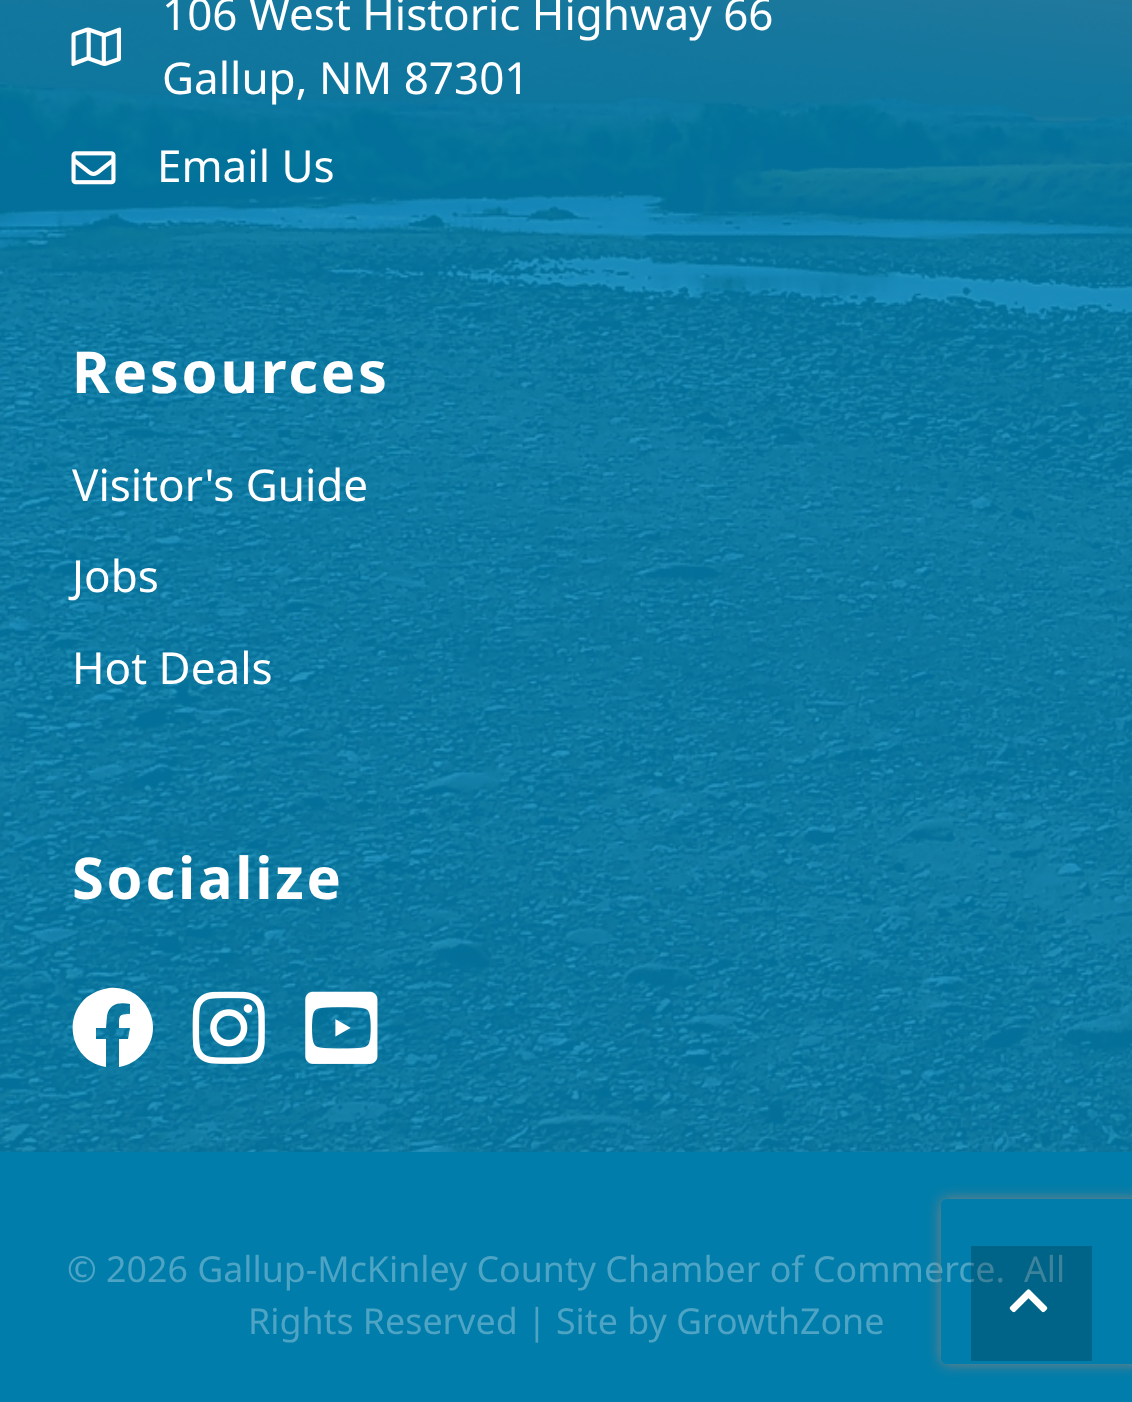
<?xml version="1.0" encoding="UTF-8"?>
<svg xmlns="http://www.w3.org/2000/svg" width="1132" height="1402">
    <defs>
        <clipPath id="clip1"><path d="M 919 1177 H 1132 V 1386 H 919 Z M 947 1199 H 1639 C 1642.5 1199 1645 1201.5 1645 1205 V 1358 C 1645 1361.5 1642.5 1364 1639 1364 H 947 C 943.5 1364 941 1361.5 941 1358 V 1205 C 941 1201.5 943.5 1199 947 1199 Z" clip-rule="evenodd"/></clipPath>
        <filter id="blur1" x="-50%" y="-200%" width="200%" height="500%"><feGaussianBlur stdDeviation="7"/></filter>
    </defs>
    <rect width="100%" height="100%" fill="#FFFFFF"/>
    <image x="0" y="0" width="1132" height="1152" href="img_01.png"/>
    <image x="71" y="27" width="50" height="39" href="img_02.png"/>
    <text font-family="Noto Sans" font-size="44" fill="#FFFFFF">
        <tspan x="162" y="30">106 West Historic Highway 66</tspan>
        <tspan x="162" y="94">Gallup, NM 87301</tspan>
    </text>
    <image x="71" y="151" width="45" height="34" href="img_03.png"/>
    <text x="157" y="182" font-family="Noto Sans" font-size="44" fill="#FFFFFF">Email Us</text>
    <text x="72" y="393" font-family="Noto Sans" font-size="57.75" font-weight="700" letter-spacing="2.75" fill="#FFFFFF">Resources</text>
    <text x="72" y="501" font-family="Noto Sans" font-size="44" fill="#FFFFFF">Visitor's Guide</text>
    <text x="72" y="592" font-family="Noto Sans" font-size="44" fill="#FFFFFF">Jobs</text>
    <text x="72" y="684" font-family="Noto Sans" font-size="44" fill="#FFFFFF">Hot Deals</text>
    <text x="72" y="899" font-family="Noto Sans" font-size="57.75" font-weight="700" letter-spacing="2.75" fill="#FFFFFF">Socialize</text>
    <path d="M 153 1028 C 153 1047 138 1064 119 1067 V 1039 H 128 L 130 1028 H 119 C 119 1016 118 1014 130 1014 V 1004 C 120 1002 109 1003 107 1016 L 106 1028 H 96 V 1039 H 106 V 1067 C 72 1062 61 1019 87 997 C 94 992 101 989 109 988 C 118 987 127 989 135 994 C 146 1002 153 1014 153 1028 Z" fill="#FFFFFF"/>
    <image x="192" y="991" width="73" height="73" href="img_04.png"/>
    <image x="305" y="991" width="73" height="73" href="img_05.png"/>
    <rect x="0" y="1152" width="1132" height="250" fill="#007DAA"/>
    <text x="67" y="1282" font-family="Noto Sans" font-size="35.75" fill="#4DA4C4">© 2026 Gallup-McKinley County Chamber of Commerce.</text>
    <text x="1024" y="1282" font-family="Noto Sans" font-size="35.75" fill="#4DA4C4">All</text>
    <text x="248" y="1334" font-family="Noto Sans" font-size="35.75" fill="#4DA4C4">Rights Reserved | Site by GrowthZone</text>
    <g clip-path="url(#clip1)">
        <rect x="941" y="1199" width="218" height="165" rx="6" fill="#808080" filter="url(#blur1)"/>
    </g>
    <rect x="971" y="1246" width="121" height="115" fill="#000000" fill-opacity="0.2"/>
    <image x="1009" y="1289" width="39" height="24" href="img_06.png"/>
</svg>
